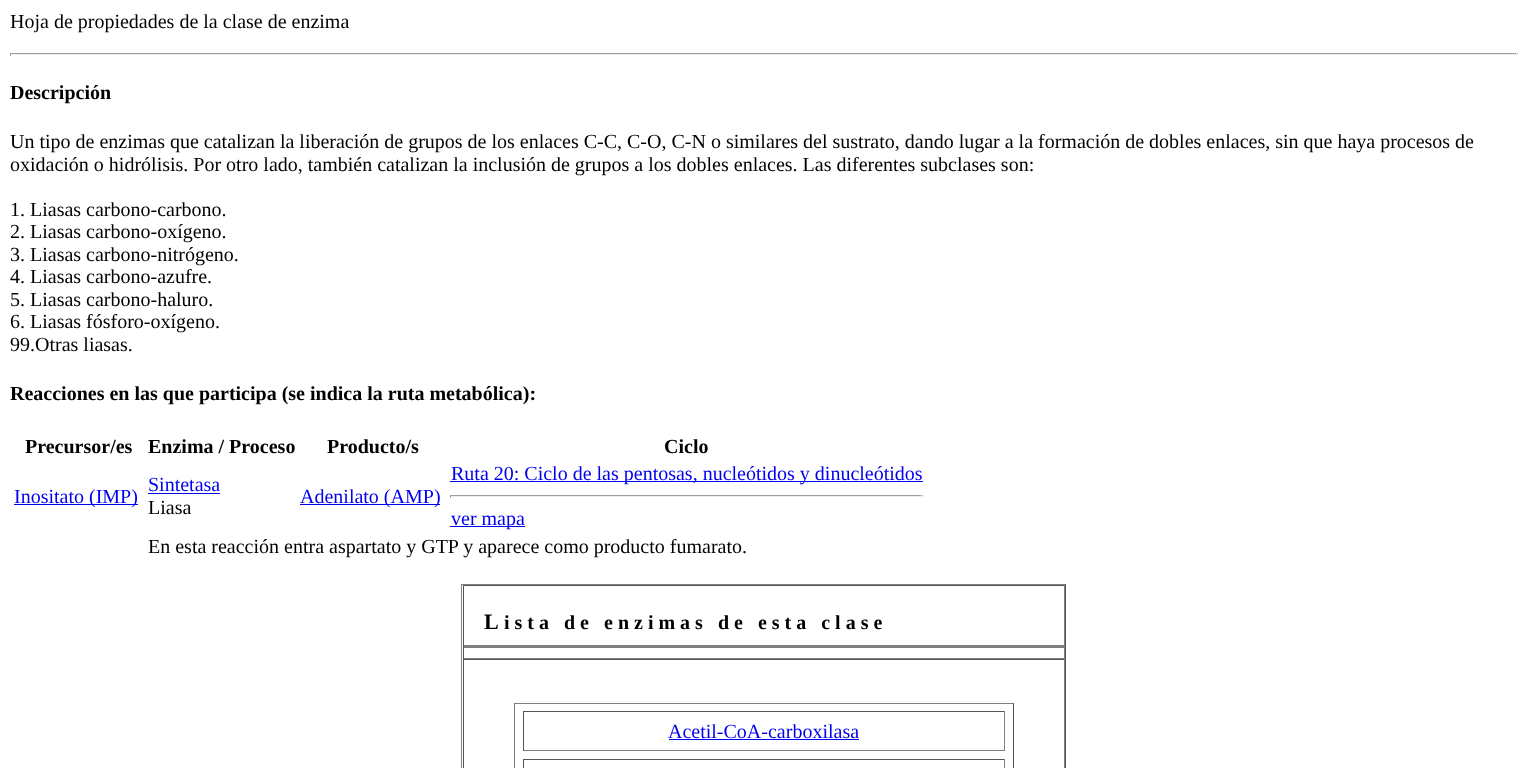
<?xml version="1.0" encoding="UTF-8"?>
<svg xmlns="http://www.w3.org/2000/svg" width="1527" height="768">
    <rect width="100%" height="100%" fill="#FFFFFF"/>
    <text x="10" y="28" font-family="Liberation Serif" font-size="20" fill="#000000">Hoja de propiedades de la clase de enzima</text>
    <rect x="10" y="53" width="1508" height="1" fill="#9F9F9F"/>
    <rect x="1516" y="53" width="1" height="3" fill="#EEEEEE"/>
    <rect x="10" y="54" width="1508" height="1" fill="#EEEEEE"/>
    <rect x="10" y="53" width="1" height="3" fill="#9F9F9F"/>
    <text x="10" y="99" font-family="Liberation Serif" font-size="20" font-weight="700" fill="#000000">Descripción</text>
    <text font-family="Liberation Serif" font-size="20" fill="#000000">
        <tspan x="10" y="148">Un tipo de enzimas que catalizan la liberación de grupos de los enlaces C-C, C-O, C-N o similares del sustrato, dando lugar a la formación de dobles enlaces, sin que haya procesos de</tspan>
        <tspan x="10" y="171">oxidación o hidrólisis. Por otro lado, también catalizan la inclusión de grupos a los dobles enlaces. Las diferentes subclases son:</tspan>
    </text>
    <text font-family="Liberation Serif" font-size="20" fill="#000000">
        <tspan x="10" y="216">1. Liasas carbono-carbono.</tspan>
        <tspan x="10" y="238">2. Liasas carbono-oxígeno.</tspan>
        <tspan x="10" y="261">3. Liasas carbono-nitrógeno.</tspan>
        <tspan x="10" y="283">4. Liasas carbono-azufre.</tspan>
        <tspan x="10" y="306">5. Liasas carbono-haluro.</tspan>
        <tspan x="10" y="328">6. Liasas fósforo-oxígeno.</tspan>
        <tspan x="10" y="351">99.Otras liasas.</tspan>
    </text>
    <text x="10" y="400" font-family="Liberation Serif" font-size="20" font-weight="700" fill="#000000">Reacciones en las que participa (se indica la ruta metabólica):</text>
    <text x="25" y="453" font-family="Liberation Serif" font-size="20" font-weight="700" fill="#000000">Precursor/es</text>
    <text x="148" y="453" font-family="Liberation Serif" font-size="20" font-weight="700" fill="#000000">Enzima / Proceso</text>
    <text x="327" y="453" font-family="Liberation Serif" font-size="20" font-weight="700" fill="#000000">Producto/s</text>
    <text x="664" y="453" font-family="Liberation Serif" font-size="20" font-weight="700" fill="#000000">Ciclo</text>
    <rect x="14" y="504" width="124" height="1" fill="#0000EE"/>
    <text x="14" y="503" font-family="Liberation Serif" font-size="20" fill="#0000EE">Inositato (IMP)</text>
    <text x="148" y="491" font-family="Liberation Serif" font-size="20" fill="#0000EE">Sintetasa</text>
    <rect x="148" y="493" width="72" height="1" fill="#0000EE"/>
    <text x="148" y="514" font-family="Liberation Serif" font-size="20" fill="#000000">Liasa</text>
    <rect x="300" y="504" width="140" height="1" fill="#0000EE"/>
    <text x="300" y="503" font-family="Liberation Serif" font-size="20" fill="#0000EE">Adenilato (AMP)</text>
    <rect x="450" y="481" width="473" height="1" fill="#0000EE"/>
    <text x="451" y="480" font-family="Liberation Serif" font-size="20" fill="#0000EE">Ruta 20: Ciclo de las pentosas, nucleótidos y dinucleótidos</text>
    <rect x="450" y="495" width="473" height="1" fill="#9F9F9F"/>
    <rect x="921" y="495" width="1" height="3" fill="#EEEEEE"/>
    <rect x="450" y="496" width="473" height="1" fill="#EEEEEE"/>
    <rect x="450" y="495" width="1" height="3" fill="#9F9F9F"/>
    <rect x="450" y="526" width="75" height="1" fill="#0000EE"/>
    <text x="451" y="525" font-family="Liberation Serif" font-size="20" fill="#0000EE">ver mapa</text>
    <text x="148" y="553" font-family="Liberation Serif" font-size="20" fill="#000000">En esta reacción entra aspartato y GTP y aparece como producto fumarato.</text>
    <rect x="461" y="584" width="605" height="1" fill="#808080"/>
    <rect x="1065" y="584" width="1" height="184" fill="#555555"/>
    <rect x="461" y="584" width="1" height="184" fill="#808080"/>
    <rect x="463" y="585" width="602" height="1" fill="#555555"/>
    <rect x="1064" y="585" width="1" height="74" fill="#808080"/>
    <rect x="463" y="658" width="602" height="1" fill="#808080"/>
    <rect x="463" y="585" width="1" height="74" fill="#555555"/>
    <text x="484" y="629" font-family="Liberation Serif" font-size="22" font-weight="700" fill="#000000">L</text>
    <text x="504" y="629" font-family="Liberation Serif" font-size="20" font-weight="700" fill="#000000">i s t a</text>
    <text x="564" y="629" font-family="Liberation Serif" font-size="20" font-weight="700" fill="#000000" xml:space="preserve">d e   e n z i m a s   d e   e s t a   c l a s e</text>
    <rect x="464" y="645" width="600" height="3" fill="#808080"/>
    <rect x="463" y="659" width="602" height="1" fill="#555555"/>
    <rect x="1064" y="659" width="1" height="109" fill="#808080"/>
    <rect x="463" y="659" width="1" height="109" fill="#555555"/>
    <rect x="514" y="703" width="500" height="1" fill="#808080"/>
    <rect x="1013" y="703" width="1" height="65" fill="#555555"/>
    <rect x="514" y="703" width="1" height="65" fill="#808080"/>
    <rect x="523" y="711" width="482" height="1" fill="#555555"/>
    <rect x="1004" y="711" width="1" height="40" fill="#808080"/>
    <rect x="523" y="750" width="482" height="1" fill="#808080"/>
    <rect x="523" y="711" width="1" height="40" fill="#555555"/>
    <text x="668" y="738" font-family="Liberation Serif" font-size="20" fill="#0000EE">Acetil-CoA-carboxilasa</text>
    <rect x="669" y="739" width="190" height="1" fill="#0000EE"/>
    <rect x="523" y="759" width="482" height="1" fill="#555555"/>
    <rect x="1004" y="759" width="1" height="9" fill="#808080"/>
    <rect x="523" y="759" width="1" height="9" fill="#555555"/>
</svg>
